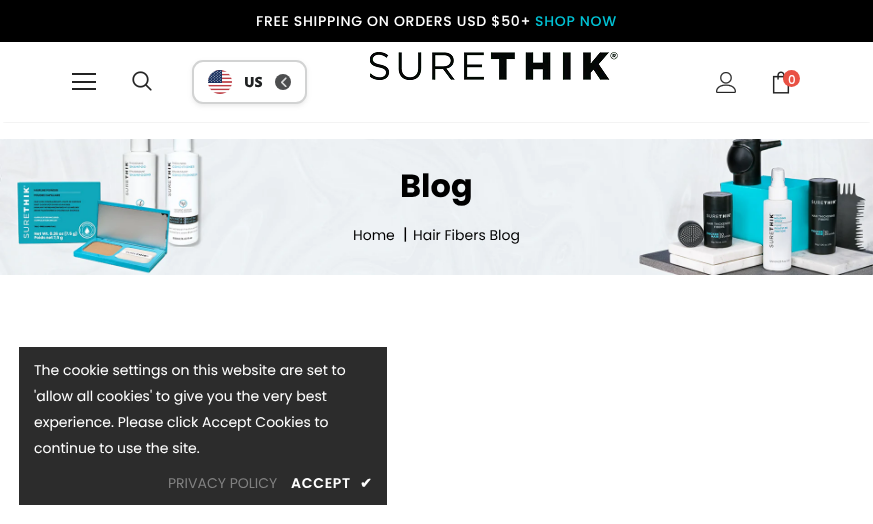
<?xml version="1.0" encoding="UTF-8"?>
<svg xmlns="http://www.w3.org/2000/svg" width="873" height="524">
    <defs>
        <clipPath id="clip1"><rect x="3" y="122" width="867" height="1"/></clipPath>
        <filter id="blur1" x="-50%" y="-200%" width="200%" height="500%"><feGaussianBlur stdDeviation="1.5"/></filter>
        <filter id="blur2" x="-50%" y="-200%" width="200%" height="500%"><feGaussianBlur stdDeviation="2"/></filter>
    </defs>
    <rect width="100%" height="100%" fill="#FFFFFF"/>
    <rect x="0" y="0" width="873" height="42" fill="#000000"/>
    <text x="256" y="26" font-family="Poppins" font-size="14" font-weight="500" letter-spacing="0.7" fill="#FFFFFF">FREE SHIPPING ON ORDERS USD $50+</text>
    <text x="535" y="26" font-family="Poppins" font-size="14" font-weight="500" letter-spacing="0.7" fill="#00C1D4">SHOP NOW</text>
    <g clip-path="url(#clip1)">
        <rect x="3" y="48" width="867" height="74" fill="#000000" fill-opacity="0.12" filter="url(#blur1)"/>
    </g>
    <rect x="72" y="73" width="24" height="2" fill="#232323"/>
    <rect x="72" y="81" width="24" height="2" fill="#232323"/>
    <rect x="72" y="88" width="24" height="2" fill="#232323"/>
    <image x="132" y="71" width="20" height="20" href="img_01.png"/>
    <rect x="192" y="62" width="115" height="44" rx="11" fill="#959595" fill-opacity="0.2" filter="url(#blur2)"/>
    <rect x="193" y="61" width="113" height="42" rx="10" fill="#FFFFFF" stroke="#D2D3D3" stroke-width="2"/>
    <image x="208" y="70" width="24" height="24" href="img_02.png"/>
    <text x="244" y="87" font-family="Noto Sans" font-size="14" font-weight="900" fill="#202223">US</text>
    <circle cx="283" cy="82" r="8" fill="#4D4E4F"/>
    <image x="281" y="77" width="6" height="10" href="img_03.png"/>
    <image x="370" y="52" width="248" height="28" href="img_04.png"/>
    <image x="716" y="72" width="20" height="21" href="img_05.png"/>
    <image x="772" y="71" width="18" height="23" href="img_06.png"/>
    <circle cx="791.5" cy="78.5" r="8.5" fill="#E95144"/>
    <text x="788" y="84" font-family="Poppins" font-size="12" font-weight="500" fill="#FFFFFF">0</text>
    <image x="0" y="139" width="873" height="136" href="img_07.png"/>
    <text x="400" y="197" font-family="Poppins" font-size="32" font-weight="700" fill="#000000">Blog</text>
    <text x="353" y="240" font-family="Poppins" font-size="14" fill="#000000">Home</text>
    <text x="403" y="240" font-family="Poppins" font-size="16" fill="#000000">|</text>
    <text x="413" y="240" font-family="Poppins" font-size="14" fill="#000000">Hair Fibers Blog</text>
    <rect x="19" y="347" width="368" height="158" fill="#2C2C2C"/>
    <text font-family="Poppins" font-size="14" fill="#FFFFFF">
        <tspan x="34" y="375">The cookie settings on this website are set to</tspan>
        <tspan x="34" y="401">'allow all cookies' to give you the very best</tspan>
        <tspan x="34" y="427">experience. Please click Accept Cookies to</tspan>
        <tspan x="34" y="453">continue to use the site.</tspan>
    </text>
    <text x="168" y="488" font-family="Poppins" font-size="14" fill="#818181">PRIVACY POLICY</text>
    <text x="291" y="488" font-family="Poppins" font-size="14" font-weight="600" letter-spacing="0.7" fill="#FFFFFF">ACCEPT</text>
    <text x="360" y="488" font-family="DejaVu Sans" font-size="14" font-weight="700" letter-spacing="0.7" fill="#FFFFFF">✔</text>
</svg>
